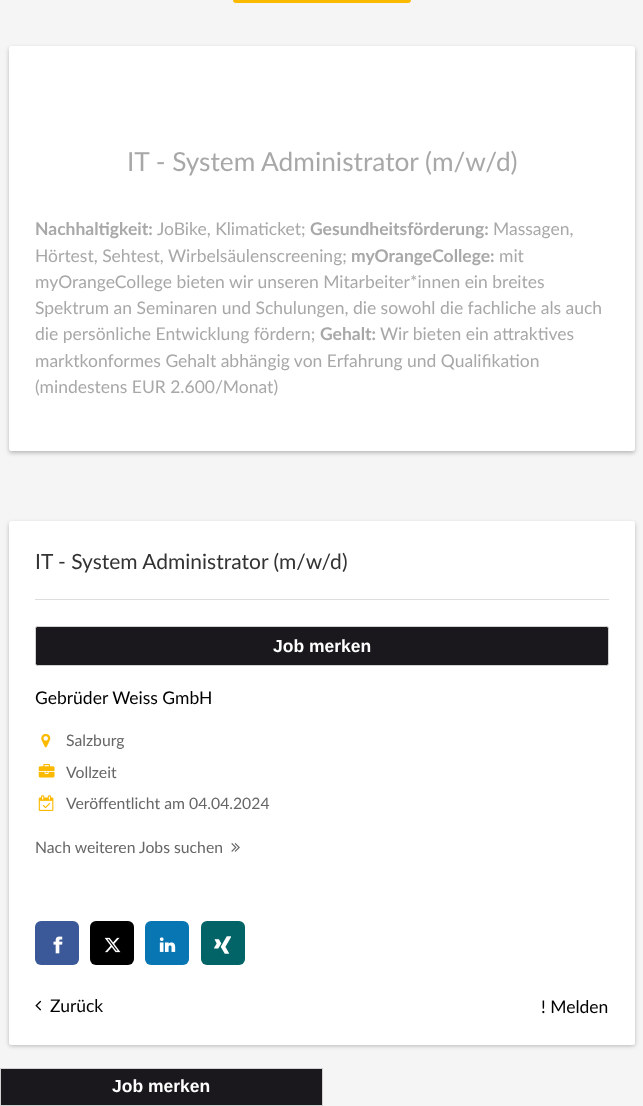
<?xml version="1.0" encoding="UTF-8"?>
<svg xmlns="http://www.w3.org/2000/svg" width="643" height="1106">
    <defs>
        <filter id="blur1" x="-50%" y="-200%" width="200%" height="500%"><feGaussianBlur stdDeviation="2"/></filter>
    </defs>
    <rect width="100%" height="100%" fill="#F5F5F5"/>
    <rect x="233.5" y="-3.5" width="177" height="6" rx="2" fill="#FBBA00" stroke="#FBBA00"/>
    <rect x="9" y="48" width="626" height="405" rx="2.5" fill="#000000" fill-opacity="0.25" filter="url(#blur1)"/>
    <rect x="9" y="46" width="626" height="405" rx="2.5" fill="#FFFFFF"/>
    <text x="127" y="171" font-family="Lato" font-size="26.25" fill="#A8A8A8">IT - System Administrator (m/w/d)</text>
    <text x="35" y="235" font-family="Lato" font-size="17.5" font-weight="700" fill="#A8A8A8">Nachhaltigkeit:</text>
    <text x="157" y="235" font-family="Lato" font-size="17.5" fill="#A8A8A8">JoBike, Klimaticket;</text>
    <text x="310" y="235" font-family="Lato" font-size="17.5" font-weight="700" fill="#A8A8A8">Gesundheitsförderung:</text>
    <text x="493" y="235" font-family="Lato" font-size="17.5" fill="#A8A8A8">Massagen,</text>
    <text x="35" y="262" font-family="Lato" font-size="17.5" fill="#A8A8A8">Hörtest, Sehtest, Wirbelsäulenscreening;</text>
    <text x="351" y="262" font-family="Lato" font-size="17.5" font-weight="700" fill="#A8A8A8">myOrangeCollege:</text>
    <text x="499" y="262" font-family="Lato" font-size="17.5" fill="#A8A8A8">mit</text>
    <text font-family="Lato" font-size="17.5" fill="#A8A8A8">
        <tspan x="35" y="288">myOrangeCollege bieten wir unseren Mitarbeiter*innen ein breites</tspan>
        <tspan x="35" y="314">Spektrum an Seminaren und Schulungen, die sowohl die fachliche als auch</tspan>
        <tspan x="35" y="340">die persönliche Entwicklung fördern;</tspan>
    </text>
    <text x="320" y="340" font-family="Lato" font-size="17.5" font-weight="700" fill="#A8A8A8">Gehalt:</text>
    <text x="380" y="340" font-family="Lato" font-size="17.5" fill="#A8A8A8">Wir bieten ein attraktives</text>
    <text font-family="Lato" font-size="17.5" fill="#A8A8A8">
        <tspan x="35" y="367">marktkonformes Gehalt abhängig von Erfahrung und Qualifikation</tspan>
        <tspan x="35" y="393">(mindestens EUR 2.600/Monat)</tspan>
    </text>
    <rect x="0.5" y="1068.5" width="322" height="37" fill="#1A181D" stroke="#D2D2D2"/>
    <text x="112" y="1092" font-family="Liberation Sans" font-size="17.5" font-weight="700" fill="#FFFFFF">Job merken</text>
    <rect x="9" y="523" width="626" height="523" rx="2.5" fill="#000000" fill-opacity="0.25" filter="url(#blur1)"/>
    <rect x="9" y="521" width="626" height="524" rx="2.5" fill="#FFFFFF"/>
    <rect x="35" y="599" width="574" height="1" fill="#DDDDDD"/>
    <text x="35" y="569" font-family="Lato" font-size="21" fill="#333333">IT - System Administrator (m/w/d)</text>
    <rect x="35.5" y="626.5" width="573" height="39" rx="2" fill="#1A181D" stroke="#D2D2D2"/>
    <text x="273" y="652" font-family="Liberation Sans" font-size="17.5" font-weight="700" fill="#FFFFFF">Job merken</text>
    <text x="35" y="704" font-family="Lato" font-size="17.5" fill="#000000">Gebrüder Weiss GmbH</text>
    <image x="41" y="733" width="10" height="15" href="img_01.png"/>
    <text x="66" y="746" font-family="Lato" font-size="15.75" fill="#666666">Salzburg</text>
    <image x="38" y="764" width="17" height="14" href="img_02.png"/>
    <text x="66" y="778" font-family="Lato" font-size="15.75" fill="#666666">Vollzeit</text>
    <image x="38" y="795" width="16" height="16" href="img_03.png"/>
    <text x="66" y="809" font-family="Lato" font-size="15.75" fill="#666666">Veröffentlicht am 04.04.2024</text>
    <text x="35" y="853" font-family="Lato" font-size="15.75" fill="#666666">Nach weiteren Jobs suchen</text>
    <image x="231" y="843" width="9" height="9" href="img_04.png"/>
    <rect x="35" y="921" width="44" height="44" rx="6" fill="#3B5998"/>
    <image x="53" y="936" width="10" height="18" href="img_05.png"/>
    <rect x="90" y="921" width="44" height="44" rx="6" fill="#000000"/>
    <image x="104" y="937" width="17" height="16" href="img_06.png"/>
    <rect x="145" y="921" width="44" height="44" rx="6" fill="#0976B4"/>
    <image x="159" y="937" width="17" height="15" href="img_07.png"/>
    <rect x="201" y="921" width="44" height="44" rx="6" fill="#026466"/>
    <image x="214" y="936" width="17" height="18" href="img_08.png"/>
    <image x="35" y="1000" width="7" height="11" href="img_09.png"/>
    <text x="50" y="1012" font-family="Lato" font-size="17.5" fill="#000000">Zurück</text>
    <text x="541" y="1013" font-family="Lato" font-size="17.5" fill="#000000">! Melden</text>
</svg>
